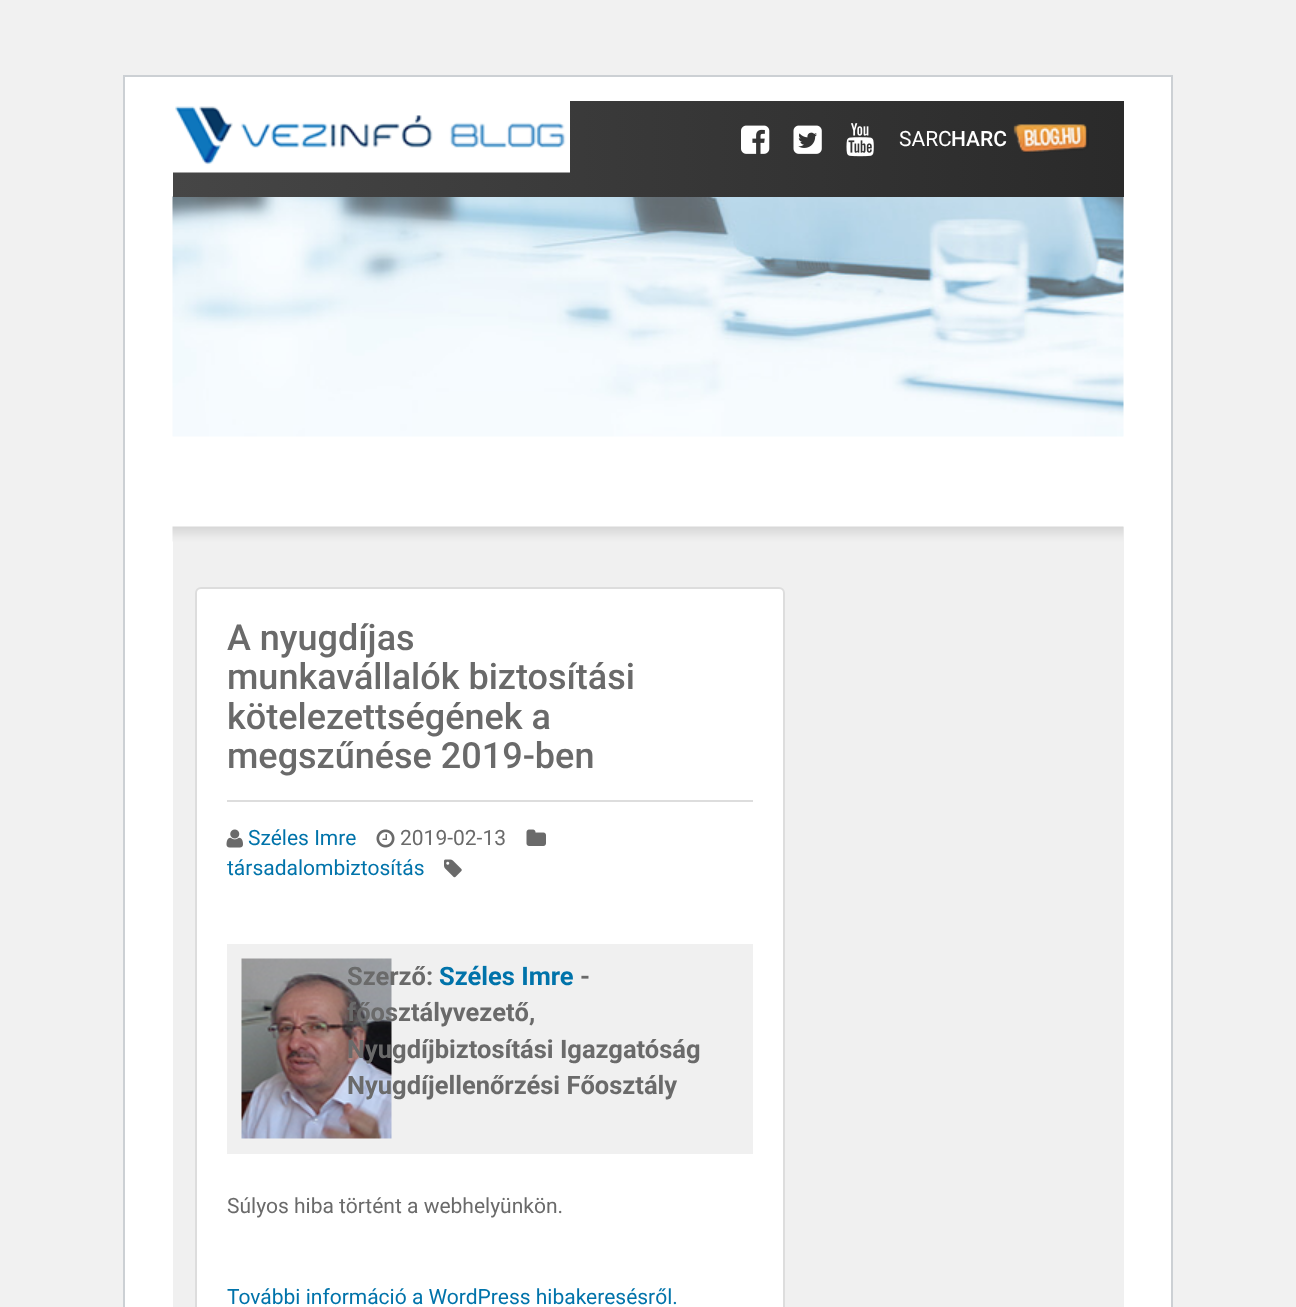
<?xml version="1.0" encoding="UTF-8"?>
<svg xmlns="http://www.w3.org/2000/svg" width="1296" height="1307">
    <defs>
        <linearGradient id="g1" gradientUnits="userSpaceOnUse" x1="173" y1="149" x2="1124" y2="148"><stop offset="0" stop-color="#464646"/><stop offset="1" stop-color="#2A2A2A"/></linearGradient>
    </defs>
    <rect width="100%" height="100%" fill="#F1F1F1"/>
    <rect x="124" y="76" width="1048" height="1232" fill="#FFFFFF" stroke="#CCD0D4" stroke-width="2"/>
    <image x="172" y="196" width="952" height="241" href="img_06.png"/>
    <rect x="173" y="101" width="951" height="96" fill="url(#g1)"/>
    <image x="173" y="101" width="397" height="72" href="img_01.png"/>
    <image x="741" y="125" width="29" height="29" href="img_02.png"/>
    <image x="793" y="125" width="29" height="29" href="img_03.png"/>
    <image x="846" y="123" width="28" height="34" href="img_04.png"/>
    <text x="899" y="146" font-family="Roboto" font-size="21" fill="#FFFFFF">SARC</text>
    <text x="951" y="146" font-family="Roboto" font-size="21" font-weight="500" fill="#FFFFFF">HARC</text>
    <image x="1013" y="124" width="76" height="29" href="img_05.png"/>
    <rect x="173" y="527" width="951" height="780" fill="#F0F0F0"/>
    <image x="172" y="526" width="952" height="16" href="img_07.png"/>
    <rect x="196" y="588" width="588" height="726" rx="5" fill="#FFFFFF" stroke="#DDDDDD" stroke-width="2"/>
    <rect x="227" y="800" width="526" height="2" fill="#DDDDDD"/>
    <text font-family="Roboto" font-size="36" font-weight="500" fill="#6A6A6A">
        <tspan x="227" y="650">A nyugdíjas</tspan>
        <tspan x="227" y="689">munkavállalók biztosítási</tspan>
        <tspan x="227" y="729">kötelezettségének a</tspan>
        <tspan x="227" y="768">megszűnése 2019-ben</tspan>
    </text>
    <image x="226" y="829" width="17" height="19" href="img_08.png"/>
    <text x="248" y="845" font-family="Roboto" font-size="21" fill="#0073AA">Széles Imre</text>
    <image x="376" y="829" width="19" height="19" href="img_09.png"/>
    <text x="400" y="845" font-family="Roboto" font-size="21" fill="#6A6A6A">2019-02-13</text>
    <image x="526" y="829" width="20" height="17" href="img_10.png"/>
    <text x="227" y="875" font-family="Roboto" font-size="21" fill="#0073AA">társadalombiztosítás</text>
    <image x="444" y="859" width="18" height="19" href="img_11.png"/>
    <rect x="227" y="944" width="526" height="210" fill="#F0F0F0"/>
    <image x="241" y="958" width="151" height="181" href="img_12.png"/>
    <text x="347" y="985" font-family="Roboto" font-size="25.5" font-weight="700" fill="#6A6A6A">Szerző:</text>
    <text x="439" y="985" font-family="Roboto" font-size="25.5" font-weight="700" fill="#0073AA">Széles Imre</text>
    <text x="580" y="985" font-family="Roboto" font-size="25.5" font-weight="700" fill="#6A6A6A">-</text>
    <text font-family="Roboto" font-size="25.5" font-weight="700" fill="#6A6A6A">
        <tspan x="347" y="1021">főosztályvezető,</tspan>
        <tspan x="347" y="1058">Nyugdíjbiztosítási Igazgatóság</tspan>
        <tspan x="347" y="1094">Nyugdíjellenőrzési Főosztály</tspan>
    </text>
    <text x="227" y="1213" font-family="Roboto" font-size="21" fill="#6A6A6A">Súlyos hiba történt a webhelyünkön.</text>
    <text x="227" y="1304" font-family="Roboto" font-size="21" fill="#0073AA">További információ a WordPress hibakeresésről.</text>
</svg>
